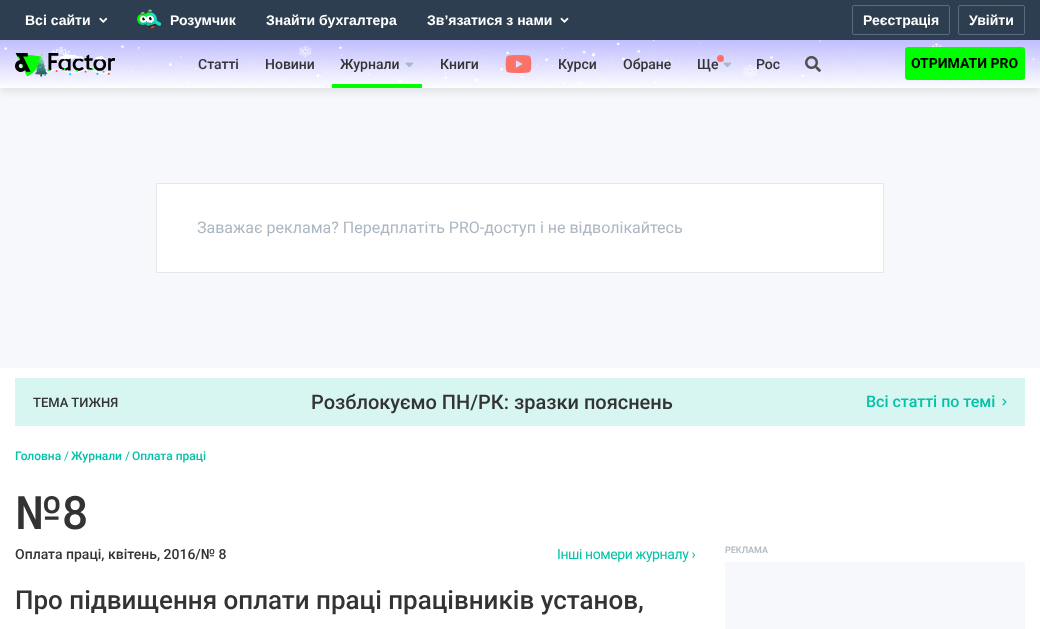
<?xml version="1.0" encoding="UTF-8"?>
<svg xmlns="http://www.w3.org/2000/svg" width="1040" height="629">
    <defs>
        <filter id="blur1" x="-50%" y="-200%" width="200%" height="500%"><feGaussianBlur stdDeviation="4"/></filter>
    </defs>
    <rect width="100%" height="100%" fill="#FFFFFF"/>
    <rect x="0" y="88" width="1040" height="280" fill="#F6F8FB"/>
    <rect x="0" y="43" width="1040" height="48" fill="#000000" fill-opacity="0.1" filter="url(#blur1)"/>
    <rect x="0" y="0" width="1040" height="40" fill="#2C3E50"/>
    <text x="25" y="25" font-family="Liberation Sans" font-size="14" font-weight="700" fill="#FFFFFF">Всі сайти</text>
    <image x="99" y="17" width="8" height="6" href="img_01.png"/>
    <image x="137" y="9" width="25" height="20" href="img_02.png"/>
    <text x="170" y="25" font-family="Liberation Sans" font-size="14" font-weight="700" fill="#FFFFFF">Розумчик</text>
    <text x="266" y="25" font-family="Liberation Sans" font-size="14" font-weight="700" fill="#FFFFFF">Знайти бухгалтера</text>
    <text x="427" y="25" font-family="Liberation Sans" font-size="14" font-weight="700" fill="#FFFFFF">Зв’язатися з нами</text>
    <image x="560" y="17" width="9" height="6" href="img_03.png"/>
    <rect x="852.5" y="5.5" width="97" height="29" rx="1.5" fill="none" stroke="#586C80"/>
    <text x="863" y="25" font-family="Liberation Sans" font-size="14" font-weight="700" fill="#FFFFFF">Реєстрація</text>
    <rect x="958.5" y="5.5" width="66" height="29" rx="1.5" fill="none" stroke="#586C80"/>
    <text x="969" y="25" font-family="Liberation Sans" font-size="14" font-weight="700" fill="#FFFFFF">Увійти</text>
    <image x="0" y="40" width="1040" height="48" href="img_04.png"/>
    <image x="15" y="53" width="100" height="24" href="img_05.png"/>
    <text x="198" y="69" font-family="Roboto" font-size="14" font-weight="500" fill="#333333">Статті</text>
    <text x="265" y="69" font-family="Roboto" font-size="14" font-weight="500" fill="#333333">Новини</text>
    <text x="340" y="69" font-family="Roboto" font-size="14" font-weight="500" fill="#333333">Журнали</text>
    <image x="405" y="62" width="9" height="6" href="img_06.png"/>
    <rect x="332" y="84" width="90" height="4" fill="#00FF00"/>
    <text x="440" y="69" font-family="Roboto" font-size="14" font-weight="500" fill="#333333">Книги</text>
    <image x="505" y="55" width="27" height="18" href="img_07.png"/>
    <text x="558" y="69" font-family="Roboto" font-size="14" font-weight="500" fill="#333333">Курси</text>
    <text x="623" y="69" font-family="Roboto" font-size="14" font-weight="500" fill="#333333">Обране</text>
    <text x="697" y="69" font-family="Roboto" font-size="14" font-weight="500" fill="#333333">Ще</text>
    <circle cx="720.5" cy="58.5" r="3.5" fill="#FB716A"/>
    <image x="723" y="62" width="9" height="6" href="img_08.png"/>
    <text x="756" y="69" font-family="Roboto" font-size="14" font-weight="500" fill="#333333">Рос</text>
    <image x="805" y="56" width="16" height="16" href="img_09.png"/>
    <rect x="905" y="47" width="120" height="33" rx="3" fill="#00FF00"/>
    <text x="911" y="68" font-family="Roboto" font-size="14" font-weight="700" fill="#000000">ОТРИМАТИ PRO</text>
    <rect x="156.5" y="183.5" width="727" height="89" fill="#FFFFFF" stroke="#E6E7E8"/>
    <text x="197" y="233" font-family="Roboto" font-size="16" fill="#ADB7C1">Заважає реклама? Передплатіть PRO-доступ і не відволікайтесь</text>
    <rect x="15" y="378" width="1010" height="48" fill="#D7F5F1"/>
    <text x="33" y="407" font-family="Roboto" font-size="13" font-weight="500" fill="#333333">ТЕМА ТИЖНЯ</text>
    <text x="311" y="409" font-family="Roboto" font-size="20" font-weight="500" fill="#333333">Розблокуємо ПН/РК: зразки пояснень</text>
    <text x="866" y="407" font-family="Roboto" font-size="16" font-weight="500" fill="#02C2A8">Всі статті по темі</text>
    <image x="1002" y="398" width="5" height="8" href="img_10.png"/>
    <text x="15" y="460" font-family="Roboto" font-size="12" font-weight="500" fill="#02C2A8">Головна</text>
    <text x="64" y="460" font-family="Roboto" font-size="12" fill="#02C2A8">/</text>
    <text x="71" y="460" font-family="Roboto" font-size="12" font-weight="500" fill="#02C2A8">Журнали</text>
    <text x="125" y="460" font-family="Roboto" font-size="12" fill="#02C2A8">/</text>
    <text x="132" y="460" font-family="Roboto" font-size="12" font-weight="500" fill="#02C2A8">Оплата праці</text>
    <text x="15" y="529" font-family="Roboto" font-size="46" font-weight="500" fill="#333333">№8</text>
    <text x="15" y="559" font-family="Roboto" font-size="14" font-weight="500" fill="#333333">Оплата праці, квітень, 2016/№ 8</text>
    <text x="557" y="559" font-family="Roboto" font-size="14" letter-spacing="-0.4" fill="#02C2A8">Інші номери журналу ›</text>
    <text x="15" y="609" font-family="Roboto" font-size="26" font-weight="500" fill="#333333">Про підвищення оплати праці працівників установ,</text>
    <text x="725" y="553" font-family="Roboto" font-size="9" font-weight="500" fill="#ADB7C1">РЕКЛАМА</text>
    <rect x="725" y="562" width="300" height="67" fill="#F6F8FB"/>
</svg>
